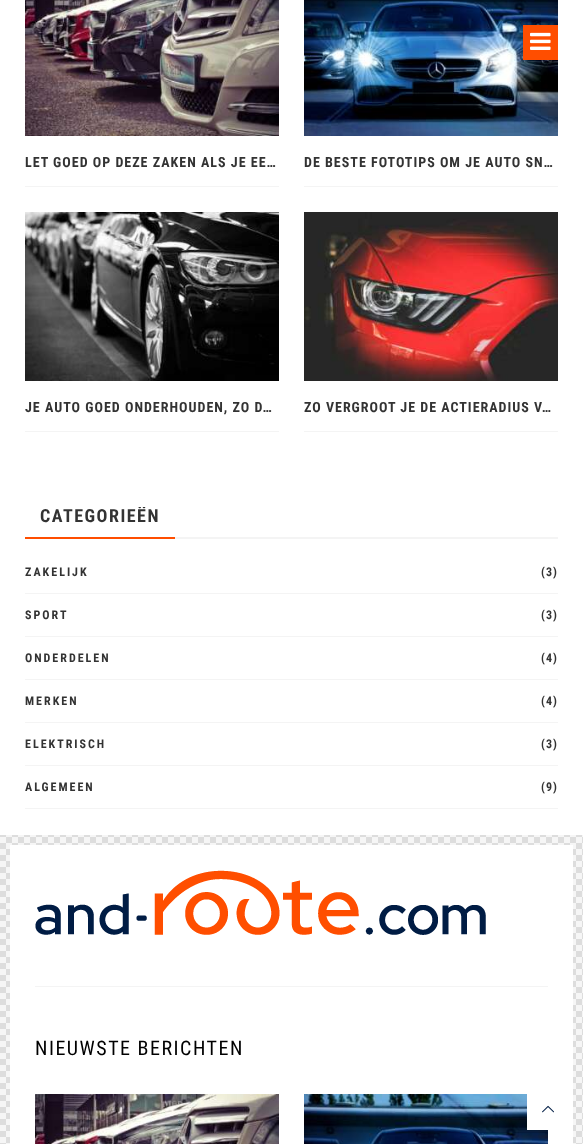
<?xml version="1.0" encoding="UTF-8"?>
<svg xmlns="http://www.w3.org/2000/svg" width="583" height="1144">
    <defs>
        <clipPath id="clip1"><rect x="25" y="507" width="150" height="30"/></clipPath>
    </defs>
    <rect width="100%" height="100%" fill="#FFFFFF"/>
    <image x="0" y="835" width="583" height="309" href="img_01.png"/>
    <image x="304" y="0" width="254" height="136" href="img_04.png"/>
    <rect x="523" y="25" width="35" height="35" fill="#FF4E00"/>
    <image x="530" y="32" width="21" height="18" href="img_02.png"/>
    <rect x="25" y="186" width="254" height="1" fill="#F4F4F4"/>
    <image x="25" y="0" width="254" height="136" href="img_03.png"/>
    <text x="25" y="167" font-family="Roboto Condensed" font-size="14" font-weight="700" letter-spacing="1" fill="#333333">LET GOED OP DEZE ZAKEN ALS JE EE…</text>
    <rect x="304" y="186" width="254" height="1" fill="#F4F4F4"/>
    <text x="304" y="167" font-family="Roboto Condensed" font-size="14" font-weight="700" letter-spacing="1" fill="#333333">DE BESTE FOTOTIPS OM JE AUTO SN…</text>
    <rect x="25" y="431" width="254" height="1" fill="#F4F4F4"/>
    <image x="25" y="212" width="254" height="169" href="img_05.png"/>
    <text x="25" y="412" font-family="Roboto Condensed" font-size="14" font-weight="700" letter-spacing="1" fill="#333333">JE AUTO GOED ONDERHOUDEN, ZO D…</text>
    <rect x="304" y="431" width="254" height="1" fill="#F4F4F4"/>
    <image x="304" y="212" width="254" height="169" href="img_06.png"/>
    <text x="304" y="412" font-family="Roboto Condensed" font-size="14" font-weight="700" letter-spacing="1" fill="#333333">ZO VERGROOT JE DE ACTIERADIUS V…</text>
    <rect x="175" y="537" width="383" height="2" fill="#F4F4F4"/>
    <rect x="25" y="537" width="150" height="2" fill="#FF4E00"/>
    <g clip-path="url(#clip1)">
        <text x="40" y="522" font-family="Roboto Condensed" font-size="18" font-weight="700" letter-spacing="1.5" fill="#333333">CATEGORIEËN</text>
    </g>
    <rect x="25" y="593" width="533" height="1" fill="#F4F4F4"/>
    <text x="25" y="576" font-family="Roboto Condensed" font-size="12" font-weight="700" letter-spacing="2" fill="#333333">ZAKELIJK</text>
    <text x="541" y="576" font-family="Roboto Condensed" font-size="12" font-weight="700" letter-spacing="1" fill="#333333">(3)</text>
    <rect x="25" y="636" width="533" height="1" fill="#F4F4F4"/>
    <text x="25" y="619" font-family="Roboto Condensed" font-size="12" font-weight="700" letter-spacing="2" fill="#333333">SPORT</text>
    <text x="541" y="619" font-family="Roboto Condensed" font-size="12" font-weight="700" letter-spacing="1" fill="#333333">(3)</text>
    <rect x="25" y="679" width="533" height="1" fill="#F4F4F4"/>
    <text x="25" y="662" font-family="Roboto Condensed" font-size="12" font-weight="700" letter-spacing="2" fill="#333333">ONDERDELEN</text>
    <text x="541" y="662" font-family="Roboto Condensed" font-size="12" font-weight="700" letter-spacing="1" fill="#333333">(4)</text>
    <rect x="25" y="722" width="533" height="1" fill="#F4F4F4"/>
    <text x="25" y="705" font-family="Roboto Condensed" font-size="12" font-weight="700" letter-spacing="2" fill="#333333">MERKEN</text>
    <text x="541" y="705" font-family="Roboto Condensed" font-size="12" font-weight="700" letter-spacing="1" fill="#333333">(4)</text>
    <rect x="25" y="765" width="533" height="1" fill="#F4F4F4"/>
    <text x="25" y="748" font-family="Roboto Condensed" font-size="12" font-weight="700" letter-spacing="2" fill="#333333">ELEKTRISCH</text>
    <text x="541" y="748" font-family="Roboto Condensed" font-size="12" font-weight="700" letter-spacing="1" fill="#333333">(3)</text>
    <rect x="25" y="808" width="533" height="1" fill="#F4F4F4"/>
    <text x="25" y="791" font-family="Roboto Condensed" font-size="12" font-weight="700" letter-spacing="2" fill="#333333">ALGEMEEN</text>
    <text x="541" y="791" font-family="Roboto Condensed" font-size="12" font-weight="700" letter-spacing="1" fill="#333333">(9)</text>
    <rect x="10" y="845" width="563" height="299" fill="#FFFFFF"/>
    <rect x="35" y="986" width="513" height="1" fill="#F4F4F4"/>
    <image x="35" y="870" width="451" height="65" href="img_07.png"/>
    <text x="35" y="1055" font-family="Roboto Condensed" font-size="20" letter-spacing="1.5" fill="#000000">NIEUWSTE BERICHTEN</text>
    <image x="35" y="1094" width="244" height="50" href="img_08.png"/>
    <image x="304" y="1094" width="244" height="50" href="img_09.png"/>
    <rect x="527" y="1094" width="21" height="36" fill="#FFFFFF"/>
    <image x="542" y="1105" width="12" height="8" href="img_10.png"/>
</svg>
